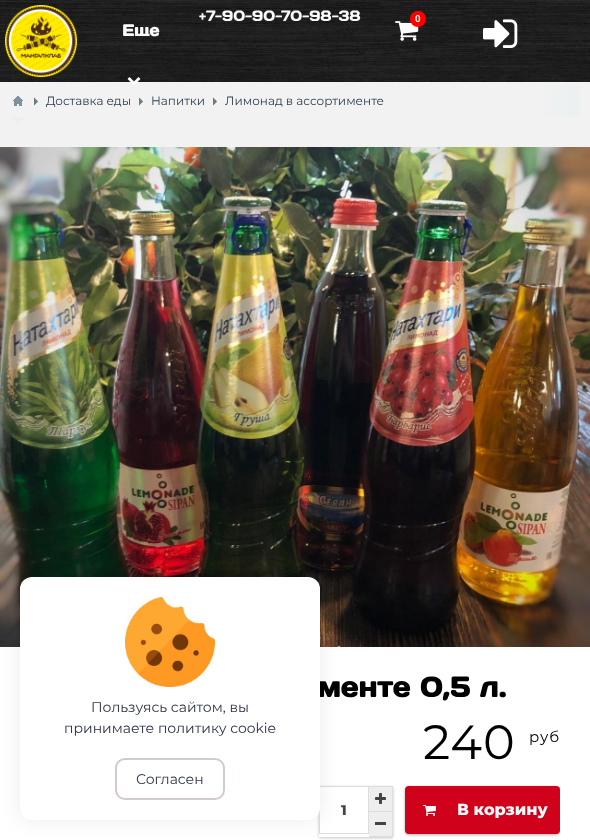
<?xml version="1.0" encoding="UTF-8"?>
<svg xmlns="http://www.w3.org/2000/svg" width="590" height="840">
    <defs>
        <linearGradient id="g1" gradientUnits="userSpaceOnUse" x1="530" y1="101" x2="580" y2="101"><stop offset="0" stop-color="#F1F2F2"/><stop offset="1" stop-color="#ECF0F1"/></linearGradient>
        <clipPath id="clip1"><path d="M 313 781 H 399 V 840 H 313 Z M 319 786 H 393 V 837 H 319 Z" clip-rule="evenodd"/></clipPath>
        <filter id="blur1" x="-50%" y="-200%" width="200%" height="500%"><feGaussianBlur stdDeviation="1.5"/></filter>
        <clipPath id="clip2"><rect x="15" y="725" width="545" height="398"/></clipPath>
        <filter id="blur2" x="-50%" y="-200%" width="200%" height="500%"><feGaussianBlur stdDeviation="10"/></filter>
    </defs>
    <rect width="100%" height="100%" fill="#F2F2F2"/>
    <image x="0" y="0" width="590" height="82" href="img_01.png"/>
    <image x="5" y="5" width="72" height="72" href="img_02.png"/>
    <text x="122" y="36" font-family="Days" font-size="16" font-weight="700" fill="#FAFAFA">Еще</text>
    <image x="127" y="77" width="14" height="8" href="img_03.png"/>
    <text x="199" y="21" font-family="Days" font-size="15" fill="#FAFAFA">+7-90-90-70-98-38</text>
    <image x="395" y="21" width="24" height="20" href="img_04.png"/>
    <circle cx="418" cy="19" r="8" fill="#FF0000"/>
    <text x="415" y="22" font-family="Liberation Sans" font-size="10" font-weight="700" fill="#FAFAFA">0</text>
    <image x="483" y="19" width="35" height="29" href="img_05.png"/>
    <image x="13" y="96" width="10" height="10" href="img_06.png"/>
    <image x="34" y="97" width="4" height="9" href="img_07.png"/>
    <text x="46" y="105" font-family="Montserrat" font-size="12" fill="#2C3E50">Доставка еды</text>
    <image x="139" y="97" width="4" height="9" href="img_07.png"/>
    <text x="151" y="105" font-family="Montserrat" font-size="12" fill="#2C3E50">Напитки</text>
    <image x="213" y="97" width="4" height="9" href="img_07.png"/>
    <text x="225" y="105" font-family="Montserrat" font-size="12" fill="#2C3E50">Лимонад в ассортименте</text>
    <rect x="545" y="85" width="35" height="32" fill="url(#g1)"/>
    <path d="M 10 117 H 26 L 18 125 Z" fill="#ECF0F1"/>
    <rect x="0" y="647" width="590" height="193" fill="#FFFFFF"/>
    <image x="0" y="147" width="590" height="500" href="img_08.png"/>
    <text x="317" y="697" font-family="Days" font-size="28" font-weight="700" fill="#000000">менте 0,5 л.</text>
    <text x="423" y="759" font-family="Montserrat" font-size="48" letter-spacing="1" fill="#000000">240</text>
    <text x="529" y="742" font-family="Montserrat" font-size="15" letter-spacing="1" fill="#000000">руб</text>
    <g clip-path="url(#clip1)">
        <rect x="319" y="787" width="74" height="51" fill="#000000" fill-opacity="0.23" filter="url(#blur1)"/>
    </g>
    <rect x="319.5" y="786.5" width="49" height="47" fill="none" stroke="#DDDDDD"/>
    <text x="341" y="815" font-family="Montserrat" font-size="14" font-weight="800" fill="#444444">1</text>
    <rect x="369" y="787" width="23" height="24" fill="#EEEEEE"/>
    <rect x="369" y="786" width="24" height="1" fill="#DDDDDD"/>
    <rect x="392" y="786" width="1" height="51" fill="#DDDDDD"/>
    <rect x="369" y="811" width="24" height="1" fill="#DDDDDD"/>
    <image x="375" y="793" width="11" height="11" href="img_09.png"/>
    <rect x="369" y="812" width="23" height="24" fill="#EEEEEE"/>
    <rect x="369" y="836" width="24" height="1" fill="#DDDDDD"/>
    <rect x="375" y="822" width="11" height="3" fill="#444444"/>
    <g clip-path="url(#clip2)">
        <rect x="405" y="787" width="155" height="48" rx="4" fill="#000000" fill-opacity="0.3" filter="url(#blur1)"/>
    </g>
    <rect x="405" y="786" width="155" height="48" rx="4" fill="#D0021B"/>
    <image x="423" y="805" width="13" height="11" href="img_10.png"/>
    <text x="457" y="815" font-family="Montserrat" font-size="16" font-weight="800" fill="#FAFAFA">В корзину</text>
    <rect x="20" y="577" width="300" height="243" rx="12" fill="#2C3249" fill-opacity="0.08" filter="url(#blur2)"/>
    <rect x="20" y="577" width="300" height="243" rx="12" fill="#FFFFFF"/>
    <image x="125" y="597" width="90" height="90" href="img_11.png"/>
    <text x="91" y="712" font-family="Montserrat" font-size="14" fill="#2C3249">Пользуясь сайтом, вы</text>
    <text x="64" y="733" font-family="Montserrat" font-size="14" fill="#2C3249">принимаете политику cookie</text>
    <rect x="116" y="759" width="108" height="40" rx="9" fill="none" stroke="#D3CBC9" stroke-width="2"/>
    <text x="136" y="784" font-family="Montserrat" font-size="14" fill="#2C3249">Согласен</text>
</svg>
